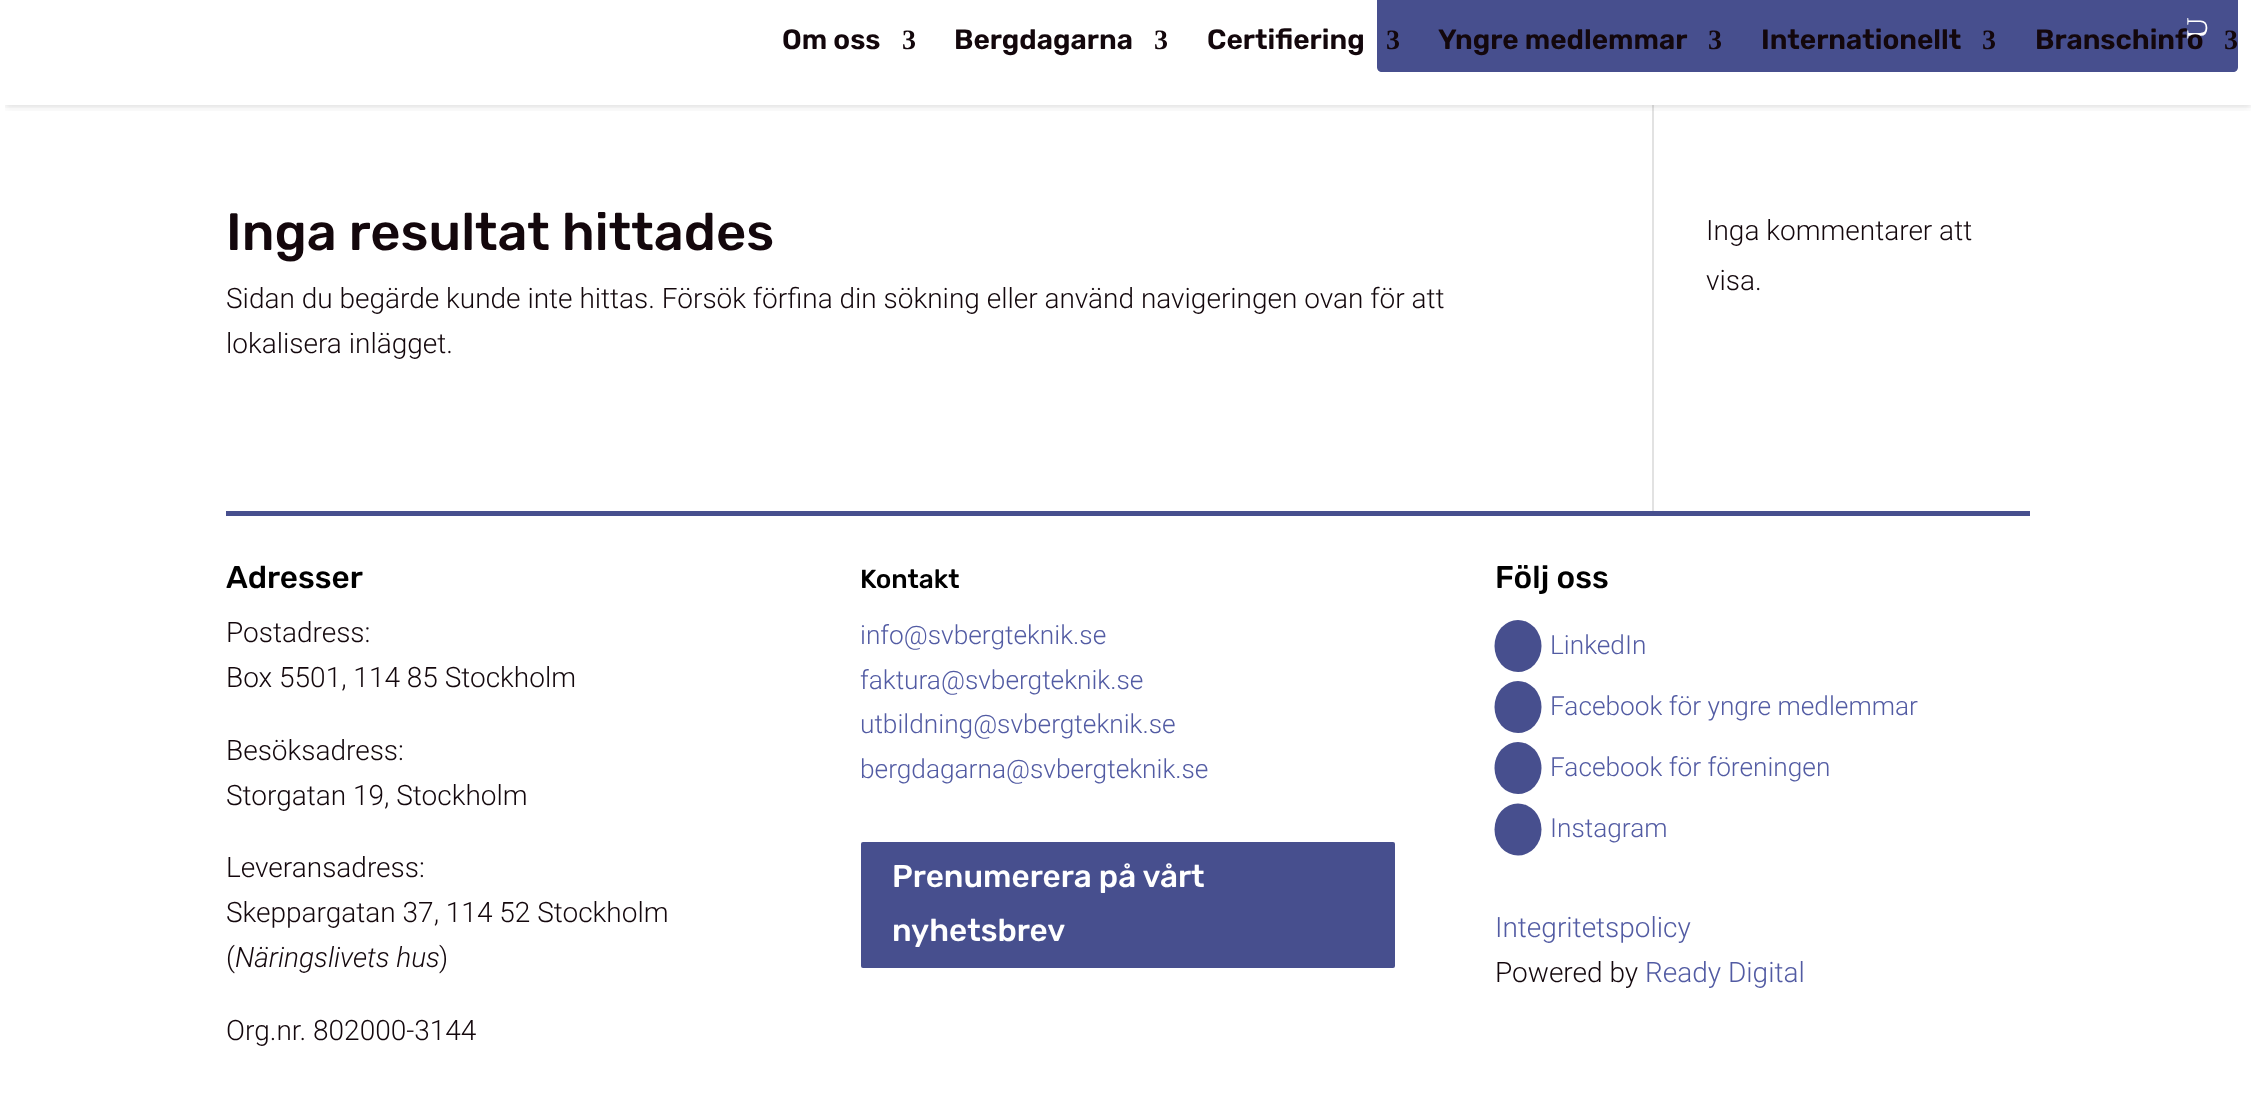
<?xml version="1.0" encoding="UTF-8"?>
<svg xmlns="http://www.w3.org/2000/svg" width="2255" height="1109">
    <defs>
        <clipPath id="clip1"><rect x="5" y="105" width="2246" height="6"/></clipPath>
        <filter id="blur1" x="-50%" y="-200%" width="200%" height="500%"><feGaussianBlur stdDeviation="4.5"/></filter>
        <clipPath id="clip2"><rect x="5" y="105" width="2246" height="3"/></clipPath>
        <filter id="blur2" x="-50%" y="-200%" width="200%" height="500%"><feGaussianBlur stdDeviation="2.5"/></filter>
    </defs>
    <rect width="100%" height="100%" fill="#FFFFFF"/>
    <rect x="1652" y="105" width="2" height="406" fill="#E2E2E2"/>
    <g clip-path="url(#clip1)">
        <rect x="5" y="12" width="2246" height="98" fill="#000000" fill-opacity="0.05" filter="url(#blur1)"/>
    </g>
    <g clip-path="url(#clip2)">
        <rect x="5" y="5" width="2246" height="102" fill="#000000" fill-opacity="0.06" filter="url(#blur2)"/>
    </g>
    <path d="M 1377 -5 H 2238 V 67 C 2238 70 2236 72 2233 72 H 1382 C 1379 72 1377 70 1377 67 Z" fill="#474F8E"/>
    <text x="2207" y="39" transform="rotate(-90 2207 39)" font-family="Liberation Serif" font-size="30" fill="#FFFFFF">U</text>
    <text x="782" y="49" font-family="Rubik" font-size="28" font-weight="600" fill="#13070C">Om oss</text>
    <text x="902" y="49" font-family="Liberation Serif" font-size="28" font-weight="700" fill="#13070C">3</text>
    <text x="954" y="49" font-family="Rubik" font-size="28" font-weight="600" fill="#13070C">Bergdagarna</text>
    <text x="1154" y="49" font-family="Liberation Serif" font-size="28" font-weight="700" fill="#13070C">3</text>
    <text x="1207" y="49" font-family="Rubik" font-size="28" font-weight="600" fill="#13070C">Certifiering</text>
    <text x="1386" y="49" font-family="Liberation Serif" font-size="28" font-weight="700" fill="#13070C">3</text>
    <text x="1438" y="49" font-family="Rubik" font-size="28" font-weight="600" fill="#13070C">Yngre medlemmar</text>
    <text x="1708" y="49" font-family="Liberation Serif" font-size="28" font-weight="700" fill="#13070C">3</text>
    <text x="1761" y="49" font-family="Rubik" font-size="28" font-weight="600" fill="#13070C">Internationellt</text>
    <text x="1982" y="49" font-family="Liberation Serif" font-size="28" font-weight="700" fill="#13070C">3</text>
    <text x="2035" y="49" font-family="Rubik" font-size="28" font-weight="600" fill="#13070C">Branschinfo</text>
    <text x="2224" y="49" font-family="Liberation Serif" font-size="28" font-weight="700" fill="#13070C">3</text>
    <text x="226" y="250" font-family="Rubik" font-size="52.5" font-weight="300" fill="#13070C">Inga resultat hittades</text>
    <text font-family="Roboto" font-size="28" font-weight="300" fill="#13070C">
        <tspan x="226" y="308">Sidan du begärde kunde inte hittas. Försök förfina din sökning eller använd navigeringen ovan för att</tspan>
        <tspan x="226" y="353">lokalisera inlägget.</tspan>
    </text>
    <text font-family="Roboto" font-size="28" font-weight="300" fill="#13070C">
        <tspan x="1706" y="240">Inga kommentarer att</tspan>
        <tspan x="1706" y="290">visa.</tspan>
    </text>
    <rect x="226" y="511" width="1804" height="5" fill="#474F8E"/>
    <text x="226" y="588" font-family="Rubik" font-size="31.5" font-weight="300" fill="#000000">Adresser</text>
    <text font-family="Roboto" font-size="28" font-weight="300" fill="#13070C">
        <tspan x="226" y="642">Postadress:</tspan>
        <tspan x="226" y="687">Box 5501, 114 85 Stockholm</tspan>
    </text>
    <text font-family="Roboto" font-size="28" font-weight="300" fill="#13070C">
        <tspan x="226" y="760">Besöksadress:</tspan>
        <tspan x="226" y="805">Storgatan 19, Stockholm</tspan>
    </text>
    <text font-family="Roboto" font-size="28" font-weight="300" fill="#13070C">
        <tspan x="226" y="877">Leveransadress:</tspan>
        <tspan x="226" y="922">Skeppargatan 37, 114 52 Stockholm</tspan>
        <tspan x="226" y="967">(</tspan>
    </text>
    <text x="235" y="967" font-family="Roboto" font-size="28" font-weight="300" font-style="italic" fill="#13070C">Näringslivets hus</text>
    <text x="439" y="967" font-family="Roboto" font-size="28" font-weight="300" fill="#13070C">)</text>
    <text x="226" y="1040" font-family="Roboto" font-size="28" font-weight="300" fill="#13070C">Org.nr. 802000-3144</text>
    <text x="860" y="588" font-family="Rubik" font-size="26.25" font-weight="300" fill="#000000">Kontakt</text>
    <text font-family="Roboto" font-size="26.25" font-weight="300" fill="#525BA3">
        <tspan x="860" y="644">info@svbergteknik.se</tspan>
        <tspan x="860" y="689">faktura@svbergteknik.se</tspan>
        <tspan x="860" y="733">utbildning@svbergteknik.se</tspan>
        <tspan x="860" y="778">bergdagarna@svbergteknik.se</tspan>
    </text>
    <rect x="861" y="842" width="534" height="126" rx="2" fill="#474F8E"/>
    <text font-family="Rubik" font-size="31.5" font-weight="300" fill="#FFFFFF">
        <tspan x="892" y="887">Prenumerera på vårt</tspan>
        <tspan x="892" y="941">nyhetsbrev</tspan>
    </text>
    <text x="1495" y="588" font-family="Rubik" font-size="31.5" font-weight="300" fill="#000000">Följ oss</text>
    <ellipse cx="1518" cy="646" rx="23.5" ry="26" fill="#474F8E"/>
    <text x="1550" y="654" font-family="Roboto" font-size="26.25" font-weight="300" fill="#525BA3">LinkedIn</text>
    <ellipse cx="1518" cy="707" rx="23.5" ry="26" fill="#474F8E"/>
    <text x="1550" y="715" font-family="Roboto" font-size="26.25" font-weight="300" fill="#525BA3">Facebook för yngre medlemmar</text>
    <ellipse cx="1518" cy="768" rx="23.5" ry="26" fill="#474F8E"/>
    <text x="1550" y="776" font-family="Roboto" font-size="26.25" font-weight="300" fill="#525BA3">Facebook för föreningen</text>
    <ellipse cx="1518" cy="829.5" rx="23.5" ry="26" fill="#474F8E"/>
    <text x="1550" y="837" font-family="Roboto" font-size="26.25" font-weight="300" fill="#525BA3">Instagram</text>
    <text x="1495" y="937" font-family="Roboto" font-size="28" font-weight="300" fill="#525BA3">Integritetspolicy</text>
    <text x="1495" y="982" font-family="Roboto" font-size="28" font-weight="300" fill="#13070C">Powered by</text>
    <text x="1645" y="982" font-family="Roboto" font-size="28" font-weight="300" fill="#525BA3">Ready Digital</text>
</svg>
